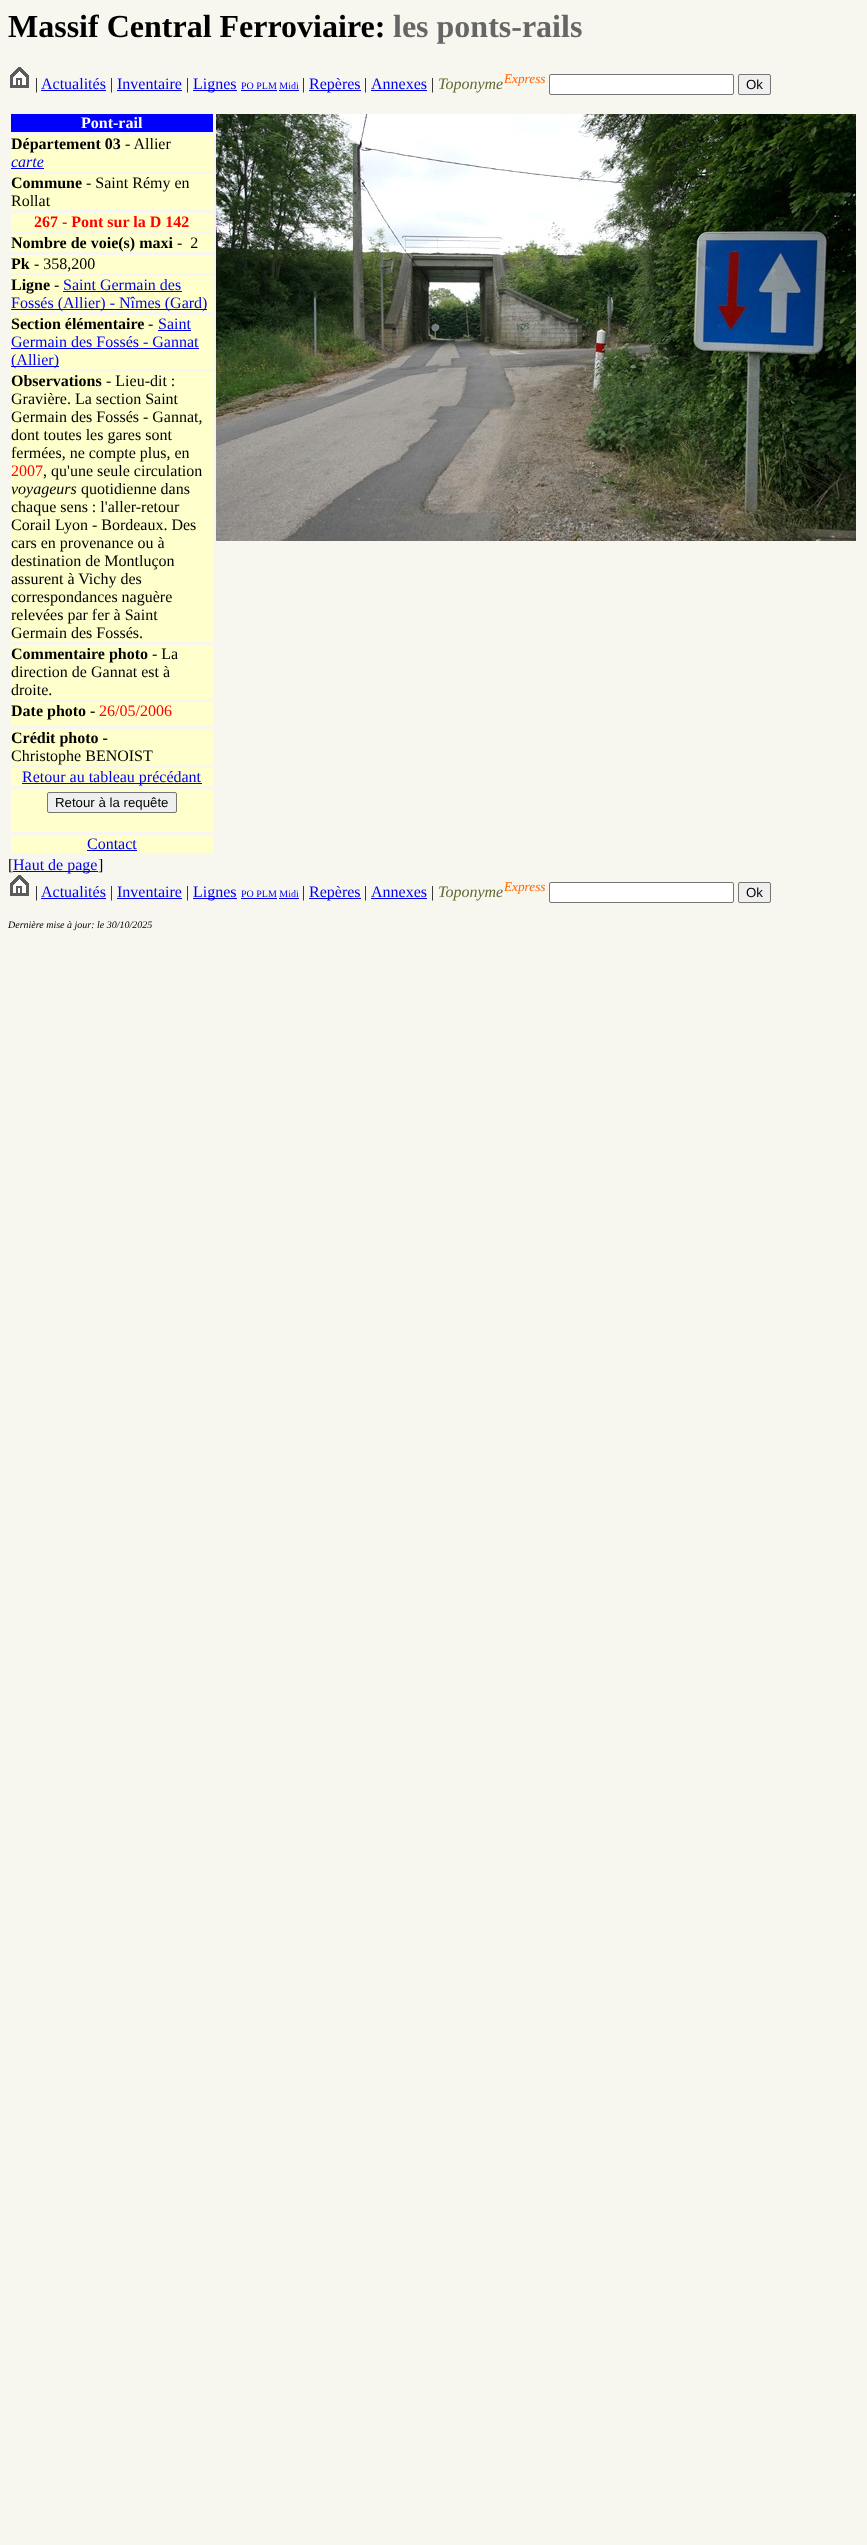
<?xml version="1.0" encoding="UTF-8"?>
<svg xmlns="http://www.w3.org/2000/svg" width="867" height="2545">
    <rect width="100%" height="100%" fill="#F7F7F0"/>
    <text x="8" y="37" font-family="Liberation Serif" font-size="32" font-weight="700" fill="#000000">Massif Central Ferroviaire:</text>
    <text x="393" y="37" font-family="Liberation Serif" font-size="32" font-weight="700" fill="#666666">les ponts-rails</text>
    <image x="10" y="67" width="19" height="21" href="img_01.png"/>
    <text x="35" y="89" font-family="Liberation Serif" font-size="16" fill="#000000">|</text>
    <text x="41" y="89" font-family="Liberation Serif" font-size="16" fill="#0000EE">Actualités</text>
    <rect x="41" y="90" width="65" height="1" fill="#0000EE"/>
    <text x="110" y="89" font-family="Liberation Serif" font-size="16" fill="#000000">|</text>
    <text x="117" y="89" font-family="Liberation Serif" font-size="16" fill="#0000EE">Inventaire</text>
    <rect x="117" y="90" width="65" height="1" fill="#0000EE"/>
    <text x="186" y="89" font-family="Liberation Serif" font-size="16" fill="#000000">|</text>
    <rect x="193" y="90" width="44" height="1" fill="#0000EE"/>
    <text x="193" y="89" font-family="Liberation Serif" font-size="16" fill="#0000EE">Lignes</text>
    <text x="241" y="89" font-family="Liberation Serif" font-size="10" fill="#0000EE">PO PLM Midi</text>
    <rect x="241" y="90" width="36" height="1" fill="#0000EE"/>
    <rect x="279" y="90" width="20" height="1" fill="#0000EE"/>
    <text x="302" y="89" font-family="Liberation Serif" font-size="16" fill="#000000">|</text>
    <rect x="309" y="90" width="52" height="1" fill="#0000EE"/>
    <text x="309" y="89" font-family="Liberation Serif" font-size="16" fill="#0000EE">Repères</text>
    <text x="364" y="89" font-family="Liberation Serif" font-size="16" fill="#000000">|</text>
    <text x="371" y="89" font-family="Liberation Serif" font-size="16" fill="#0000EE">Annexes</text>
    <rect x="371" y="90" width="56" height="1" fill="#0000EE"/>
    <text x="431" y="89" font-family="Liberation Serif" font-size="16" fill="#000000">|</text>
    <text x="438" y="89" font-family="Liberation Serif" font-size="16" font-style="italic" fill="#666633">Toponyme</text>
    <text x="504" y="83" font-family="Liberation Serif" font-size="13.25" font-style="italic" fill="#FF6600">Express</text>
    <rect x="549.5" y="74.5" width="184" height="20" rx="1.5" fill="#FFFFFF" stroke="#767676"/>
    <rect x="738.5" y="74.5" width="32" height="20" rx="1.5" fill="#EFEFEF" stroke="#767676"/>
    <text x="746" y="89" font-family="Liberation Sans" font-size="13.25" fill="#000000">Ok</text>
    <rect x="11" y="114" width="202" height="18" fill="#0000FF"/>
    <text x="81" y="128" font-family="Liberation Serif" font-size="16" font-weight="700" fill="#FFFFFF">Pont-rail</text>
    <image x="216" y="114" width="640" height="427" href="img_02.png"/>
    <rect x="11" y="135" width="202" height="36" fill="#FFFFCC"/>
    <text x="11" y="149" font-family="Liberation Serif" font-size="16" font-weight="700" fill="#000000">Département 03</text>
    <text x="125" y="149" font-family="Liberation Serif" font-size="16" fill="#000000">- Allier</text>
    <text x="11" y="167" font-family="Liberation Serif" font-size="16" font-style="italic" fill="#0000EE">carte</text>
    <rect x="11" y="168" width="33" height="1" fill="#0000EE"/>
    <rect x="11" y="174" width="202" height="36" fill="#FFFFCC"/>
    <text x="11" y="188" font-family="Liberation Serif" font-size="16" font-weight="700" fill="#000000">Commune</text>
    <text x="86" y="188" font-family="Liberation Serif" font-size="16" fill="#000000">- Saint Rémy en</text>
    <text x="11" y="206" font-family="Liberation Serif" font-size="16" fill="#000000">Rollat</text>
    <rect x="11" y="213" width="202" height="18" fill="#FFFFCC"/>
    <text x="34" y="227" font-family="Liberation Serif" font-size="16" font-weight="700" fill="#FF0000">267 - Pont sur la D 142</text>
    <rect x="11" y="234" width="202" height="18" fill="#FFFFCC"/>
    <text x="11" y="248" font-family="Liberation Serif" font-size="16" font-weight="700" fill="#000000">Nombre de voie(s) maxi</text>
    <text x="177" y="248" font-family="Liberation Serif" font-size="16" fill="#000000" xml:space="preserve">-  2</text>
    <rect x="11" y="255" width="202" height="18" fill="#FFFFCC"/>
    <text x="11" y="269" font-family="Liberation Serif" font-size="16" font-weight="700" fill="#000000">Pk</text>
    <text x="34" y="269" font-family="Liberation Serif" font-size="16" fill="#000000">- 358,200</text>
    <rect x="11" y="276" width="202" height="36" fill="#FFFFCC"/>
    <text x="11" y="290" font-family="Liberation Serif" font-size="16" font-weight="700" fill="#000000">Ligne</text>
    <text x="54" y="290" font-family="Liberation Serif" font-size="16" fill="#000000">-</text>
    <text x="63" y="290" font-family="Liberation Serif" font-size="16" fill="#0000EE">Saint Germain des</text>
    <rect x="63" y="291" width="119" height="1" fill="#0000EE"/>
    <rect x="11" y="309" width="196" height="1" fill="#0000EE"/>
    <text x="11" y="308" font-family="Liberation Serif" font-size="16" fill="#0000EE">Fossés (Allier) - Nîmes (Gard)</text>
    <rect x="11" y="315" width="202" height="54" fill="#FFFFCC"/>
    <text x="11" y="329" font-family="Liberation Serif" font-size="16" font-weight="700" fill="#000000">Section élémentaire</text>
    <text x="148" y="329" font-family="Liberation Serif" font-size="16" fill="#000000">-</text>
    <text x="158" y="329" font-family="Liberation Serif" font-size="16" fill="#0000EE">Saint</text>
    <rect x="158" y="330" width="33" height="1" fill="#0000EE"/>
    <text x="11" y="347" font-family="Liberation Serif" font-size="16" fill="#0000EE">Germain des Fossés - Gannat</text>
    <rect x="11" y="348" width="188" height="1" fill="#0000EE"/>
    <rect x="11" y="366" width="48" height="1" fill="#0000EE"/>
    <text x="11" y="365" font-family="Liberation Serif" font-size="16" fill="#0000EE">(Allier)</text>
    <rect x="11" y="372" width="202" height="270" fill="#FFFFCC"/>
    <text x="11" y="386" font-family="Liberation Serif" font-size="16" font-weight="700" fill="#000000">Observations</text>
    <text x="106" y="386" font-family="Liberation Serif" font-size="16" fill="#000000">- Lieu-dit :</text>
    <text font-family="Liberation Serif" font-size="16" fill="#000000">
        <tspan x="11" y="404">Gravière. La section Saint</tspan>
        <tspan x="11" y="422">Germain des Fossés - Gannat,</tspan>
        <tspan x="11" y="440">dont toutes les gares sont</tspan>
        <tspan x="11" y="458">fermées, ne compte plus, en</tspan>
    </text>
    <text x="11" y="476" font-family="Liberation Serif" font-size="16" fill="#FF0000">2007</text>
    <text x="43" y="476" font-family="Liberation Serif" font-size="16" fill="#000000">, qu'une seule circulation</text>
    <text x="11" y="494" font-family="Liberation Serif" font-size="16" font-style="italic" fill="#000000">voyageurs</text>
    <text x="81" y="494" font-family="Liberation Serif" font-size="16" fill="#000000">quotidienne dans</text>
    <text font-family="Liberation Serif" font-size="16" fill="#000000">
        <tspan x="11" y="512">chaque sens : l'aller-retour</tspan>
        <tspan x="11" y="530">Corail Lyon - Bordeaux. Des</tspan>
        <tspan x="11" y="548">cars en provenance ou à</tspan>
        <tspan x="11" y="566">destination de Montluçon</tspan>
        <tspan x="11" y="584">assurent à Vichy des</tspan>
        <tspan x="11" y="602">correspondances naguère</tspan>
        <tspan x="11" y="620">relevées par fer à Saint</tspan>
        <tspan x="11" y="638">Germain des Fossés.</tspan>
    </text>
    <rect x="11" y="645" width="202" height="54" fill="#FFFFCC"/>
    <text x="11" y="659" font-family="Liberation Serif" font-size="16" font-weight="700" fill="#000000">Commentaire photo</text>
    <text x="152" y="659" font-family="Liberation Serif" font-size="16" fill="#000000">- La</text>
    <text font-family="Liberation Serif" font-size="16" fill="#000000">
        <tspan x="11" y="677">direction de Gannat est à</tspan>
        <tspan x="11" y="695">droite.</tspan>
    </text>
    <rect x="11" y="702" width="202" height="24" fill="#FFFFCC"/>
    <text x="11" y="716" font-family="Liberation Serif" font-size="16" font-weight="700" fill="#000000">Date photo -</text>
    <text x="99" y="716" font-family="Liberation Serif" font-size="16" fill="#FF0000">26/05/2006</text>
    <rect x="11" y="729" width="202" height="36" fill="#FFFFCC"/>
    <text x="11" y="743" font-family="Liberation Serif" font-size="16" font-weight="700" fill="#000000">Crédit photo -</text>
    <text x="11" y="761" font-family="Liberation Serif" font-size="16" fill="#000000">Christophe BENOIST</text>
    <rect x="11" y="768" width="202" height="18" fill="#FFFFCC"/>
    <rect x="22" y="783" width="180" height="1" fill="#0000EE"/>
    <text x="22" y="782" font-family="Liberation Serif" font-size="16" fill="#0000EE">Retour au tableau précédant</text>
    <rect x="11" y="789" width="202" height="43" fill="#FFFFCC"/>
    <rect x="47.5" y="792.5" width="129" height="20" rx="1.5" fill="#EFEFEF" stroke="#767676"/>
    <text x="55" y="807" font-family="Liberation Sans" font-size="13.25" fill="#000000">Retour à la requête</text>
    <rect x="11" y="835" width="202" height="18" fill="#FFFFCC"/>
    <text x="87" y="849" font-family="Liberation Serif" font-size="16" fill="#0000EE">Contact</text>
    <rect x="87" y="850" width="50" height="1" fill="#0000EE"/>
    <text x="8" y="870" font-family="Liberation Serif" font-size="16" fill="#000000">[</text>
    <rect x="13" y="871" width="85" height="1" fill="#0000EE"/>
    <text x="13" y="870" font-family="Liberation Serif" font-size="16" fill="#0000EE">Haut de page</text>
    <text x="98" y="870" font-family="Liberation Serif" font-size="16" fill="#000000">]</text>
    <image x="10" y="875" width="19" height="21" href="img_01.png"/>
    <text x="35" y="897" font-family="Liberation Serif" font-size="16" fill="#000000">|</text>
    <text x="41" y="897" font-family="Liberation Serif" font-size="16" fill="#0000EE">Actualités</text>
    <rect x="41" y="898" width="65" height="1" fill="#0000EE"/>
    <text x="110" y="897" font-family="Liberation Serif" font-size="16" fill="#000000">|</text>
    <text x="117" y="897" font-family="Liberation Serif" font-size="16" fill="#0000EE">Inventaire</text>
    <rect x="117" y="898" width="65" height="1" fill="#0000EE"/>
    <text x="186" y="897" font-family="Liberation Serif" font-size="16" fill="#000000">|</text>
    <rect x="193" y="898" width="44" height="1" fill="#0000EE"/>
    <text x="193" y="897" font-family="Liberation Serif" font-size="16" fill="#0000EE">Lignes</text>
    <text x="241" y="897" font-family="Liberation Serif" font-size="10" fill="#0000EE">PO PLM Midi</text>
    <rect x="241" y="898" width="36" height="1" fill="#0000EE"/>
    <rect x="279" y="898" width="20" height="1" fill="#0000EE"/>
    <text x="302" y="897" font-family="Liberation Serif" font-size="16" fill="#000000">|</text>
    <rect x="309" y="898" width="52" height="1" fill="#0000EE"/>
    <text x="309" y="897" font-family="Liberation Serif" font-size="16" fill="#0000EE">Repères</text>
    <text x="364" y="897" font-family="Liberation Serif" font-size="16" fill="#000000">|</text>
    <text x="371" y="897" font-family="Liberation Serif" font-size="16" fill="#0000EE">Annexes</text>
    <rect x="371" y="898" width="56" height="1" fill="#0000EE"/>
    <text x="431" y="897" font-family="Liberation Serif" font-size="16" fill="#000000">|</text>
    <text x="438" y="897" font-family="Liberation Serif" font-size="16" font-style="italic" fill="#666633">Toponyme</text>
    <text x="504" y="891" font-family="Liberation Serif" font-size="13.25" font-style="italic" fill="#FF6600">Express</text>
    <rect x="549.5" y="882.5" width="184" height="20" rx="1.5" fill="#FFFFFF" stroke="#767676"/>
    <rect x="738.5" y="882.5" width="32" height="20" rx="1.5" fill="#EFEFEF" stroke="#767676"/>
    <text x="746" y="897" font-family="Liberation Sans" font-size="13.25" fill="#000000">Ok</text>
    <text x="8" y="928" font-family="Liberation Serif" font-size="10" font-style="italic" fill="#000000">Dernière mise à jour: le 30/10/2025</text>
</svg>
